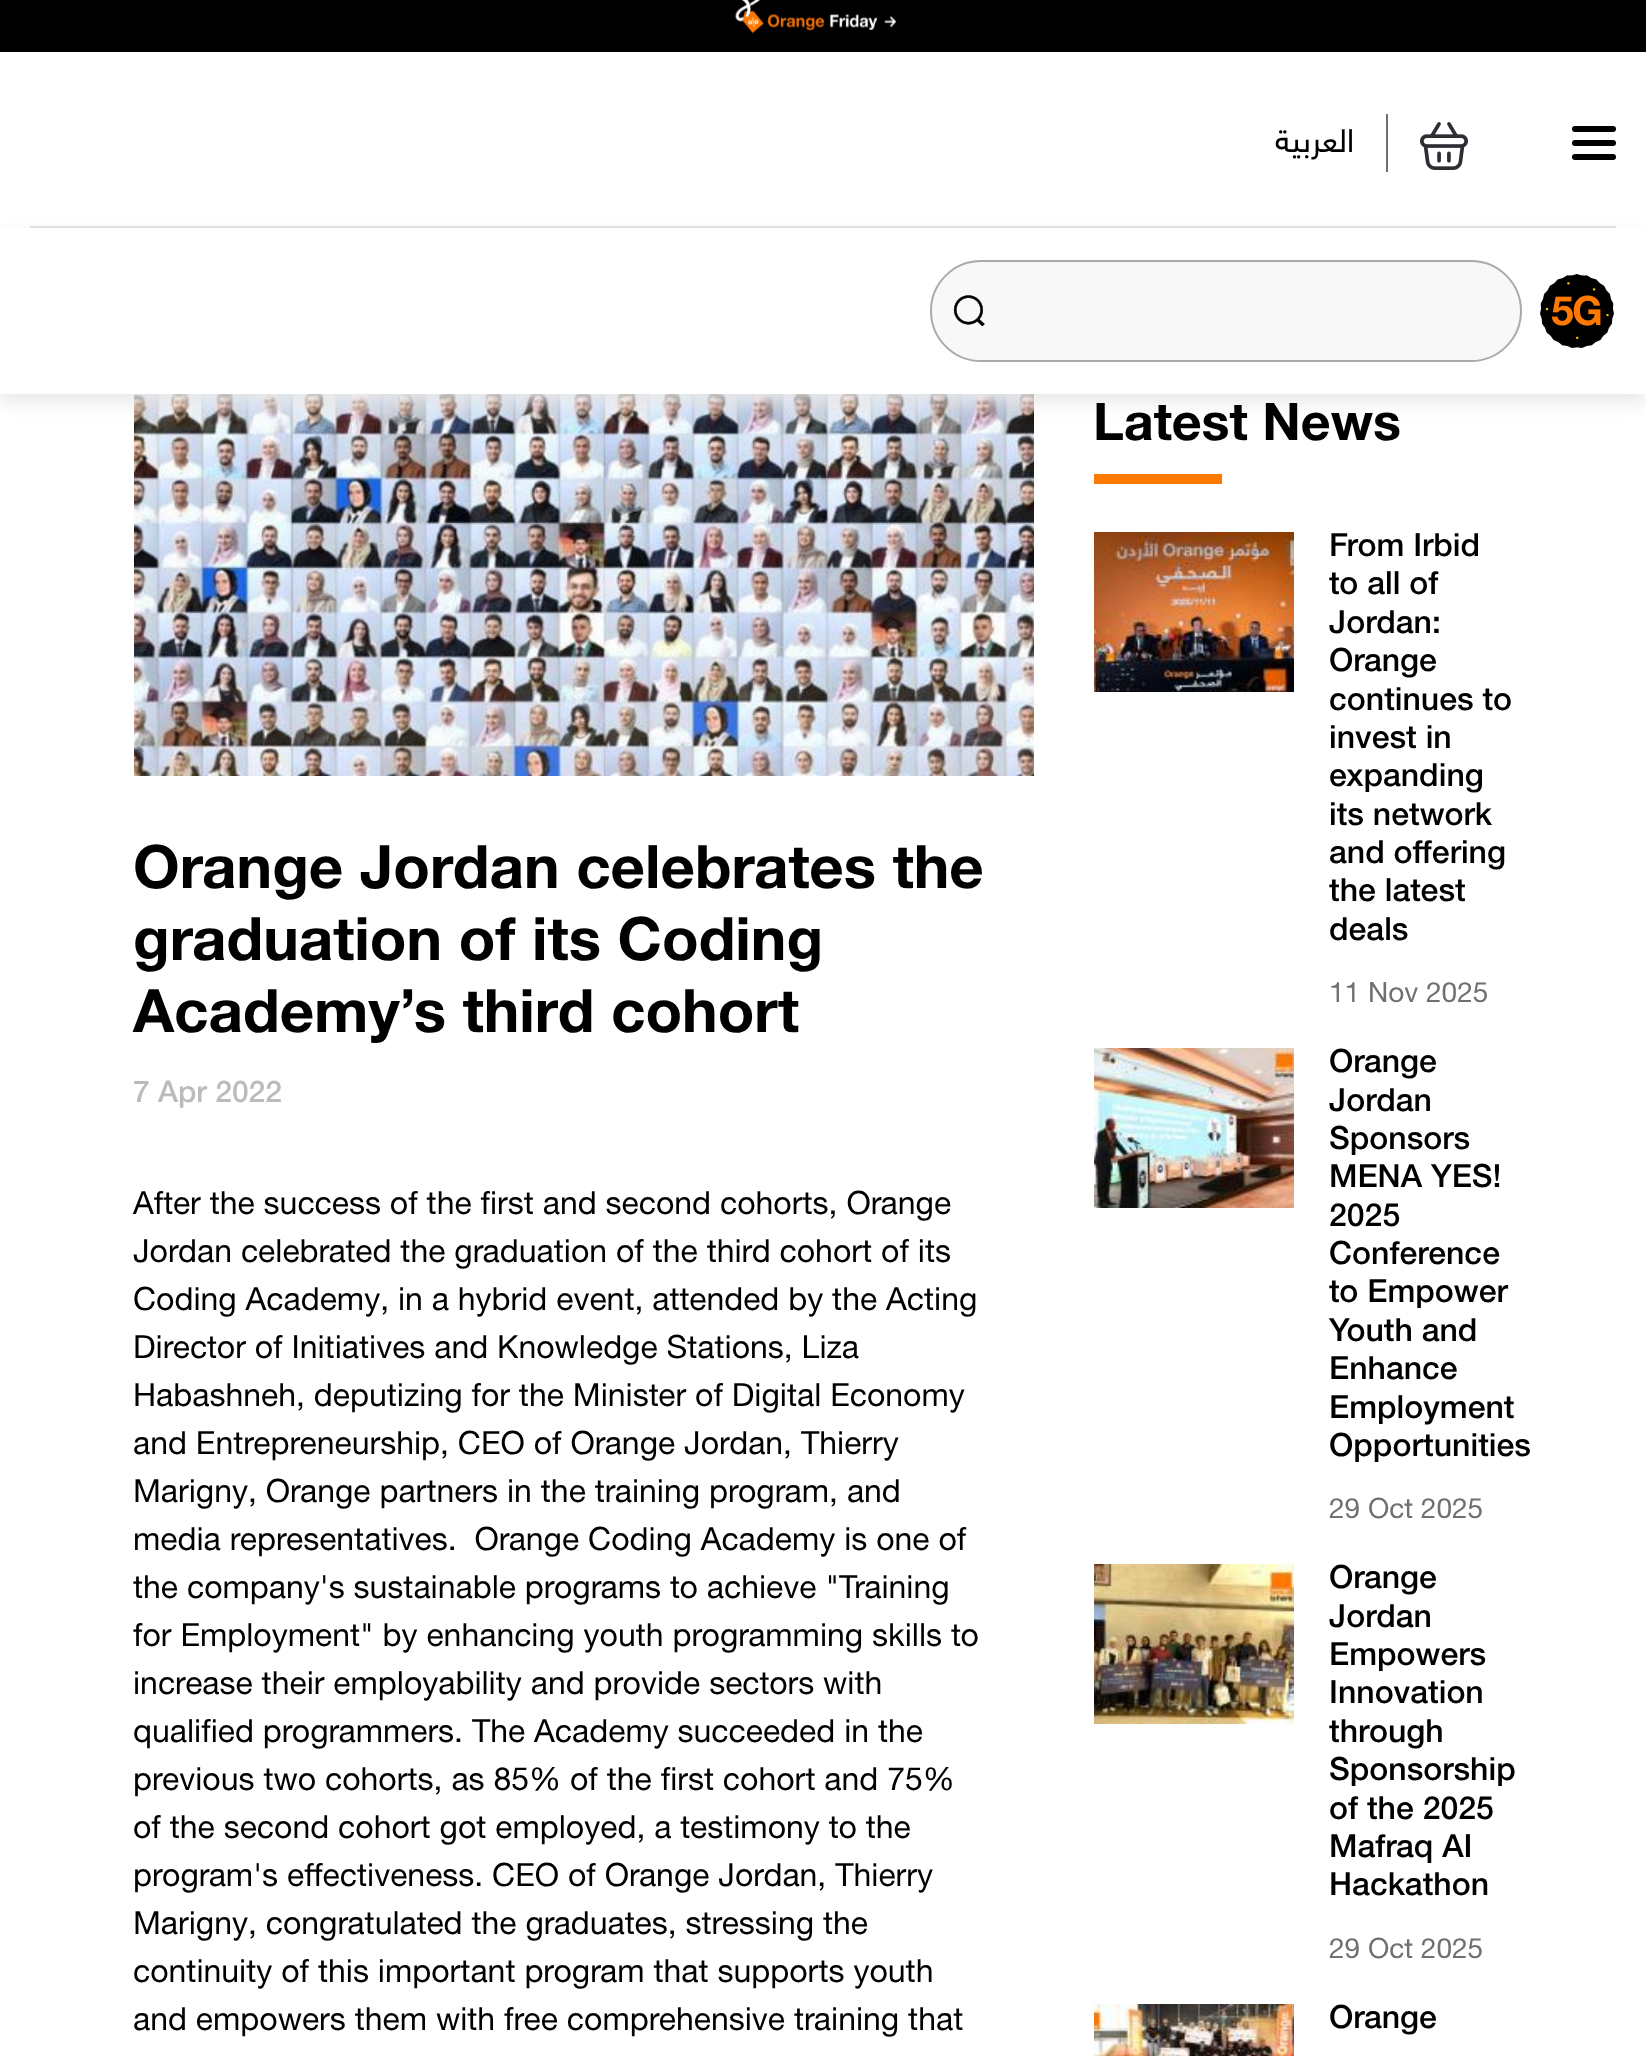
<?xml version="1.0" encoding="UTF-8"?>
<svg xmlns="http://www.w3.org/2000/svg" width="1646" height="2056">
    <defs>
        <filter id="blur1" x="-50%" y="-200%" width="200%" height="500%"><feGaussianBlur stdDeviation="9"/></filter>
    </defs>
    <rect width="100%" height="100%" fill="#FFFFFF"/>
    <rect x="0" y="0" width="1646" height="52" fill="#000000"/>
    <image x="735" y="0" width="161" height="34" href="img_01.png"/>
    <image x="134" y="394" width="900" height="382" href="img_05.png"/>
    <rect x="0" y="236" width="1646" height="166" fill="#E7E7E7" filter="url(#blur1)"/>
    <rect x="30" y="226" width="1586" height="2" fill="#DFDFDF"/>
    <rect x="1386" y="114" width="2" height="58" fill="#707070"/>
    <text x="1354" y="152" font-family="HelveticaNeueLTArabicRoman" font-size="32" direction="rtl" fill="#000000">العربية</text>
    <image x="1420" y="122" width="48" height="48" href="img_02.png"/>
    <rect x="1572" y="126" width="44" height="6" rx="3" fill="#000000"/>
    <rect x="1572" y="140" width="44" height="6" rx="3" fill="#000000"/>
    <rect x="1572" y="154" width="44" height="6" rx="3" fill="#000000"/>
    <rect x="0" y="228" width="1646" height="166" fill="#FFFFFF"/>
    <rect x="931" y="261" width="590" height="100" rx="50" fill="#F8F8F8" stroke="#AAAAAA" stroke-width="2"/>
    <image x="953" y="295" width="32" height="32" href="img_03.png"/>
    <image x="1540" y="274" width="74" height="74" href="img_04.png"/>
    <text font-family="Helvetica Neue" font-size="60" font-weight="700" fill="#000000">
        <tspan x="133" y="888">Orange Jordan celebrates the</tspan>
        <tspan x="133" y="960">graduation of its Coding</tspan>
        <tspan x="133" y="1032">Academy’s third cohort</tspan>
    </text>
    <text x="133" y="1102" font-family="Helvetica Neue" font-size="30" font-weight="500" fill="#BBBBBB">7 Apr 2022</text>
    <text font-family="Helvetica Neue" font-size="32" fill="#000000" xml:space="preserve"><tspan x="133" y="1214">After the success of the first and second cohorts, Orange</tspan><tspan x="133" y="1262">Jordan celebrated the graduation of the third cohort of its</tspan><tspan x="133" y="1310">Coding Academy, in a hybrid event, attended by the Acting</tspan><tspan x="133" y="1358">Director of Initiatives and Knowledge Stations, Liza</tspan><tspan x="133" y="1406">Habashneh, deputizing for the Minister of Digital Economy</tspan><tspan x="133" y="1454">and Entrepreneurship, CEO of Orange Jordan, Thierry</tspan><tspan x="133" y="1502">Marigny, Orange partners in the training program, and</tspan><tspan x="133" y="1550">media representatives.  Orange Coding Academy is one of</tspan><tspan x="133" y="1598">the company's sustainable programs to achieve "Training</tspan><tspan x="133" y="1646">for Employment" by enhancing youth programming skills to</tspan><tspan x="133" y="1694">increase their employability and provide sectors with</tspan><tspan x="133" y="1742">qualified programmers. The Academy succeeded in the</tspan><tspan x="133" y="1790">previous two cohorts, as 85% of the first cohort and 75%</tspan><tspan x="133" y="1838">of the second cohort got employed, a testimony to the</tspan><tspan x="133" y="1886">program's effectiveness. CEO of Orange Jordan, Thierry</tspan><tspan x="133" y="1934">Marigny, congratulated the graduates, stressing the</tspan><tspan x="133" y="1982">continuity of this important program that supports youth</tspan><tspan x="133" y="2030">and empowers them with free comprehensive training that</tspan></text>
    <text x="1093" y="440" font-family="Helvetica Neue" font-size="52" font-weight="700" fill="#000000">Latest News</text>
    <rect x="1094" y="474" width="128" height="10" fill="#FF7900"/>
    <image x="1094" y="532" width="200" height="160" href="img_06.png"/>
    <text font-family="Helvetica Neue" font-size="32" font-weight="500" fill="#000000">
        <tspan x="1329" y="556">From Irbid</tspan>
        <tspan x="1329" y="594">to all of</tspan>
        <tspan x="1329" y="633">Jordan:</tspan>
        <tspan x="1329" y="671">Orange</tspan>
        <tspan x="1329" y="710">continues to</tspan>
        <tspan x="1329" y="748">invest in</tspan>
        <tspan x="1329" y="786">expanding</tspan>
        <tspan x="1329" y="825">its network</tspan>
        <tspan x="1329" y="863">and offering</tspan>
        <tspan x="1329" y="901">the latest</tspan>
        <tspan x="1329" y="940">deals</tspan>
    </text>
    <text x="1329" y="1002" font-family="Helvetica Neue" font-size="28" fill="#707070">11 Nov 2025</text>
    <image x="1094" y="1048" width="200" height="160" href="img_07.png"/>
    <text font-family="Helvetica Neue" font-size="32" font-weight="500" fill="#000000">
        <tspan x="1329" y="1072">Orange</tspan>
        <tspan x="1329" y="1111">Jordan</tspan>
        <tspan x="1329" y="1149">Sponsors</tspan>
        <tspan x="1329" y="1187">MENA YES!</tspan>
        <tspan x="1329" y="1226">2025</tspan>
        <tspan x="1329" y="1264">Conference</tspan>
        <tspan x="1329" y="1302">to Empower</tspan>
        <tspan x="1329" y="1341">Youth and</tspan>
        <tspan x="1329" y="1379">Enhance</tspan>
        <tspan x="1329" y="1418">Employment</tspan>
        <tspan x="1329" y="1456">Opportunities</tspan>
    </text>
    <text x="1329" y="1518" font-family="Helvetica Neue" font-size="28" fill="#707070">29 Oct 2025</text>
    <image x="1094" y="1564" width="200" height="160" href="img_08.png"/>
    <text font-family="Helvetica Neue" font-size="32" font-weight="500" fill="#000000">
        <tspan x="1329" y="1588">Orange</tspan>
        <tspan x="1329" y="1627">Jordan</tspan>
        <tspan x="1329" y="1665">Empowers</tspan>
        <tspan x="1329" y="1703">Innovation</tspan>
        <tspan x="1329" y="1742">through</tspan>
        <tspan x="1329" y="1780">Sponsorship</tspan>
        <tspan x="1329" y="1819">of the 2025</tspan>
        <tspan x="1329" y="1857">Mafraq AI</tspan>
        <tspan x="1329" y="1895">Hackathon</tspan>
    </text>
    <text x="1329" y="1958" font-family="Helvetica Neue" font-size="28" fill="#707070">29 Oct 2025</text>
    <image x="1094" y="2004" width="200" height="52" href="img_09.png"/>
    <text x="1329" y="2028" font-family="Helvetica Neue" font-size="32" font-weight="500" fill="#000000">Orange</text>
</svg>
